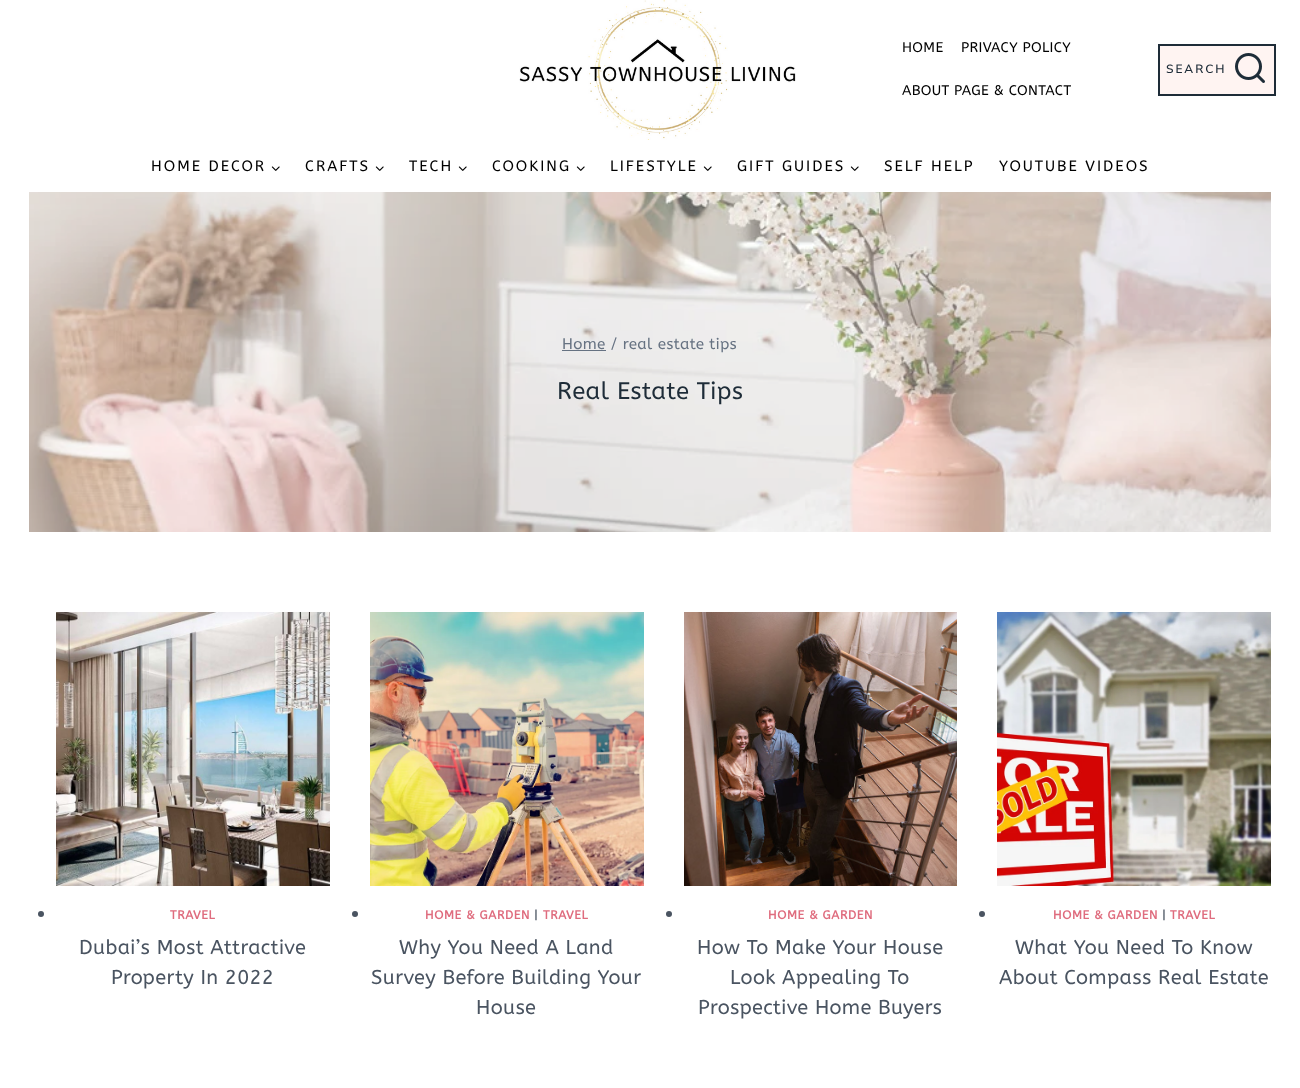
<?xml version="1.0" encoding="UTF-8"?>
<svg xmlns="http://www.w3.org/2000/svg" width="1300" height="1088">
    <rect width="100%" height="100%" fill="#FFFFFF"/>
    <image x="519" y="0" width="277" height="140" href="img_01.png"/>
    <text x="902" y="52" font-family="ABeeZee" font-size="14" letter-spacing="0.35" fill="#000000">HOME</text>
    <text x="961" y="52" font-family="ABeeZee" font-size="14" letter-spacing="0.35" fill="#000000">PRIVACY POLICY</text>
    <text x="902" y="95" font-family="ABeeZee" font-size="14" letter-spacing="0.35" fill="#000000">ABOUT PAGE &amp; CONTACT</text>
    <rect x="1159" y="45" width="116" height="50" fill="#FFF4F2" stroke="#1E2C38" stroke-width="2"/>
    <text x="1166" y="73" font-family="Nunito Sans" font-size="12" font-weight="200" letter-spacing="2" fill="#1E2C38">SEARCH</text>
    <image x="1235" y="53" width="30" height="30" href="img_02.png"/>
    <text x="151" y="171" font-family="ABeeZee" font-size="15" letter-spacing="2" fill="#000000">HOME DECOR</text>
    <image x="271" y="166" width="9" height="5" href="img_03.png"/>
    <text x="305" y="171" font-family="ABeeZee" font-size="15" letter-spacing="2" fill="#000000">CRAFTS</text>
    <image x="375" y="166" width="9" height="5" href="img_03.png"/>
    <text x="409" y="171" font-family="ABeeZee" font-size="15" letter-spacing="2" fill="#000000">TECH</text>
    <image x="458" y="166" width="9" height="5" href="img_03.png"/>
    <text x="492" y="171" font-family="ABeeZee" font-size="15" letter-spacing="2" fill="#000000">COOKING</text>
    <image x="576" y="166" width="9" height="5" href="img_03.png"/>
    <text x="610" y="171" font-family="ABeeZee" font-size="15" letter-spacing="2" fill="#000000">LIFESTYLE</text>
    <image x="703" y="166" width="9" height="5" href="img_03.png"/>
    <text x="737" y="171" font-family="ABeeZee" font-size="15" letter-spacing="2" fill="#000000">GIFT GUIDES</text>
    <image x="850" y="166" width="9" height="5" href="img_03.png"/>
    <text x="884" y="171" font-family="ABeeZee" font-size="15" letter-spacing="2" fill="#000000">SELF HELP</text>
    <text x="999" y="171" font-family="ABeeZee" font-size="15" letter-spacing="2" fill="#000000">YOUTUBE VIDEOS</text>
    <image x="29" y="192" width="1242" height="340" href="img_04.png"/>
    <rect x="562" y="350" width="44" height="1" fill="#667282"/>
    <text x="562" y="349" font-family="ABeeZee" font-size="15.25" letter-spacing="0.35" fill="#667282">Home / real estate tips</text>
    <text x="557" y="399" font-family="ABeeZee" font-size="24" letter-spacing="0.35" fill="#1E2C38">Real Estate Tips</text>
    <circle cx="41" cy="914" r="3" fill="#4A5461"/>
    <image x="56" y="612" width="274" height="274" href="img_05.png"/>
    <text x="170" y="919" font-family="ABeeZee" font-size="12" font-weight="700" letter-spacing="0.6" fill="#DF6C7E">TRAVEL</text>
    <text x="79" y="954" font-family="ABeeZee" font-size="20" letter-spacing="0.35" fill="#4A5461">Dubai’s Most Attractive</text>
    <text x="111" y="984" font-family="ABeeZee" font-size="20" letter-spacing="0.35" fill="#4A5461">Property In 2022</text>
    <circle cx="355" cy="914" r="3" fill="#4A5461"/>
    <image x="370" y="612" width="274" height="274" href="img_06.png"/>
    <text x="425" y="919" font-family="ABeeZee" font-size="12" font-weight="700" letter-spacing="0.6" fill="#DF6C7E">HOME &amp; GARDEN</text>
    <text x="534" y="919" font-family="ABeeZee" font-size="12" font-weight="700" letter-spacing="0.6" fill="#4A5461">|</text>
    <text x="543" y="919" font-family="ABeeZee" font-size="12" font-weight="700" letter-spacing="0.6" fill="#DF6C7E">TRAVEL</text>
    <text x="399" y="954" font-family="ABeeZee" font-size="20" letter-spacing="0.35" fill="#4A5461">Why You Need A Land</text>
    <text x="371" y="984" font-family="ABeeZee" font-size="20" letter-spacing="0.35" fill="#4A5461">Survey Before Building Your</text>
    <text x="476" y="1014" font-family="ABeeZee" font-size="20" letter-spacing="0.35" fill="#4A5461">House</text>
    <circle cx="669" cy="914" r="3" fill="#4A5461"/>
    <image x="684" y="612" width="273" height="274" href="img_07.png"/>
    <text x="768" y="919" font-family="ABeeZee" font-size="12" font-weight="700" letter-spacing="0.6" fill="#DF6C7E">HOME &amp; GARDEN</text>
    <text x="697" y="954" font-family="ABeeZee" font-size="20" letter-spacing="0.35" fill="#4A5461">How To Make Your House</text>
    <text x="730" y="984" font-family="ABeeZee" font-size="20" letter-spacing="0.35" fill="#4A5461">Look Appealing To</text>
    <text x="698" y="1014" font-family="ABeeZee" font-size="20" letter-spacing="0.35" fill="#4A5461">Prospective Home Buyers</text>
    <circle cx="982" cy="914" r="3" fill="#4A5461"/>
    <image x="997" y="612" width="274" height="274" href="img_08.png"/>
    <text x="1053" y="919" font-family="ABeeZee" font-size="12" font-weight="700" letter-spacing="0.6" fill="#DF6C7E">HOME &amp; GARDEN</text>
    <text x="1162" y="919" font-family="ABeeZee" font-size="12" font-weight="700" letter-spacing="0.6" fill="#4A5461">|</text>
    <text x="1170" y="919" font-family="ABeeZee" font-size="12" font-weight="700" letter-spacing="0.6" fill="#DF6C7E">TRAVEL</text>
    <text x="1015" y="954" font-family="ABeeZee" font-size="20" letter-spacing="0.35" fill="#4A5461">What You Need To Know</text>
    <text x="999" y="984" font-family="ABeeZee" font-size="20" letter-spacing="0.35" fill="#4A5461">About Compass Real Estate</text>
</svg>
